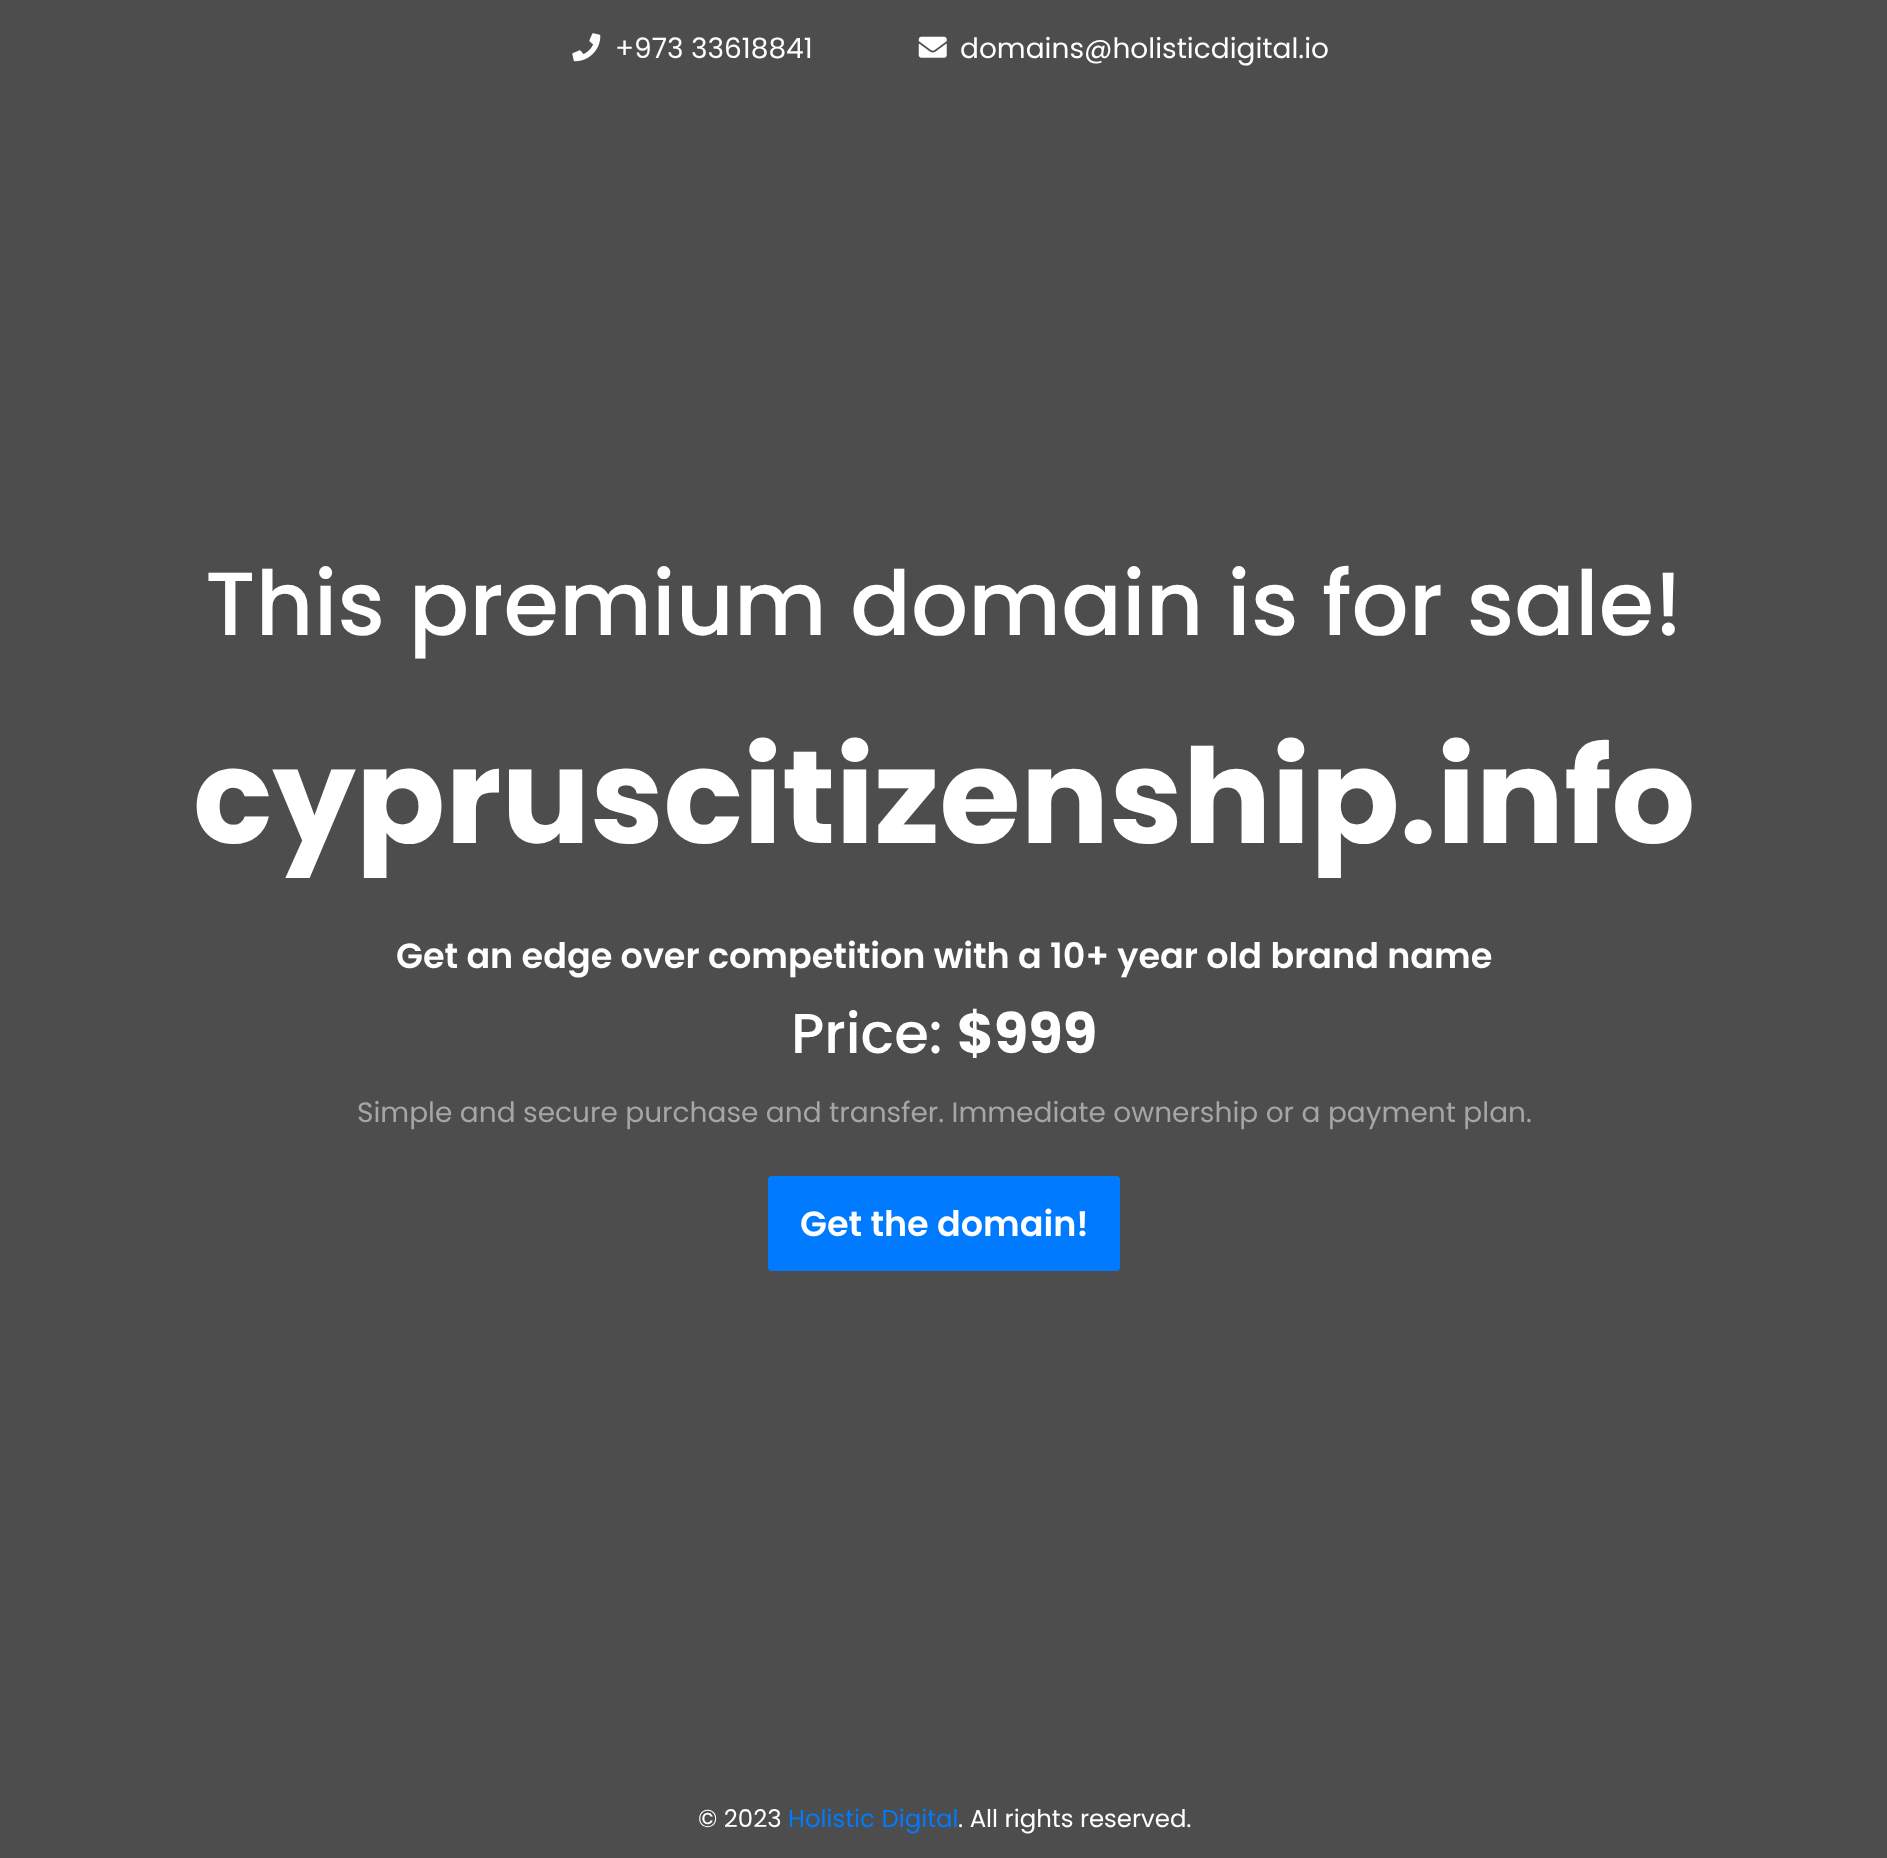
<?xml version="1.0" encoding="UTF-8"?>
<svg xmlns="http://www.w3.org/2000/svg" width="1887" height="1858">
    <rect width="100%" height="100%" fill="#4D4D4D"/>
    <image x="572" y="33" width="29" height="29" href="img_01.png"/>
    <text x="615" y="58" font-family="Poppins" font-size="28" fill="#FFFFFF">+973 33618841</text>
    <image x="918" y="36" width="29" height="22" href="img_02.png"/>
    <text x="960" y="58" font-family="Poppins" font-size="28" fill="#FFFFFF">domains@holisticdigital.io</text>
    <text x="205" y="635" font-family="Poppins" font-size="89.6" font-weight="500" fill="#FFFFFF">This premium domain is for sale!</text>
    <text x="193" y="843" font-family="Poppins" font-size="131.6" font-weight="700" fill="#FFFFFF">cypruscitizenship.info</text>
    <text x="396" y="968" font-family="Poppins" font-size="35" font-weight="600" fill="#FFFFFF">Get an edge over competition with a 10+ year old brand name</text>
    <text x="791" y="1053" font-family="Poppins" font-size="56" font-weight="500" fill="#FFFFFF">Price:</text>
    <text x="957" y="1053" font-family="Poppins" font-size="56" font-weight="700" fill="#FFFFFF">$999</text>
    <text x="357" y="1122" font-family="Poppins" font-size="28" fill="#A6A6A6">Simple and secure purchase and transfer. Immediate ownership or a payment plan.</text>
    <rect x="768" y="1176" width="352" height="95" rx="4" fill="#007BFF"/>
    <text x="800" y="1236" font-family="Poppins" font-size="35" font-weight="600" fill="#FFFFFF">Get the domain!</text>
    <text x="698" y="1827" font-family="Poppins" font-size="24.4" fill="#FFFFFF">© 2023</text>
    <text x="788" y="1827" font-family="Poppins" font-size="24.4" fill="#007BFF">Holistic Digital</text>
    <text x="958" y="1827" font-family="Poppins" font-size="24.4" fill="#FFFFFF">. All rights reserved.</text>
</svg>
